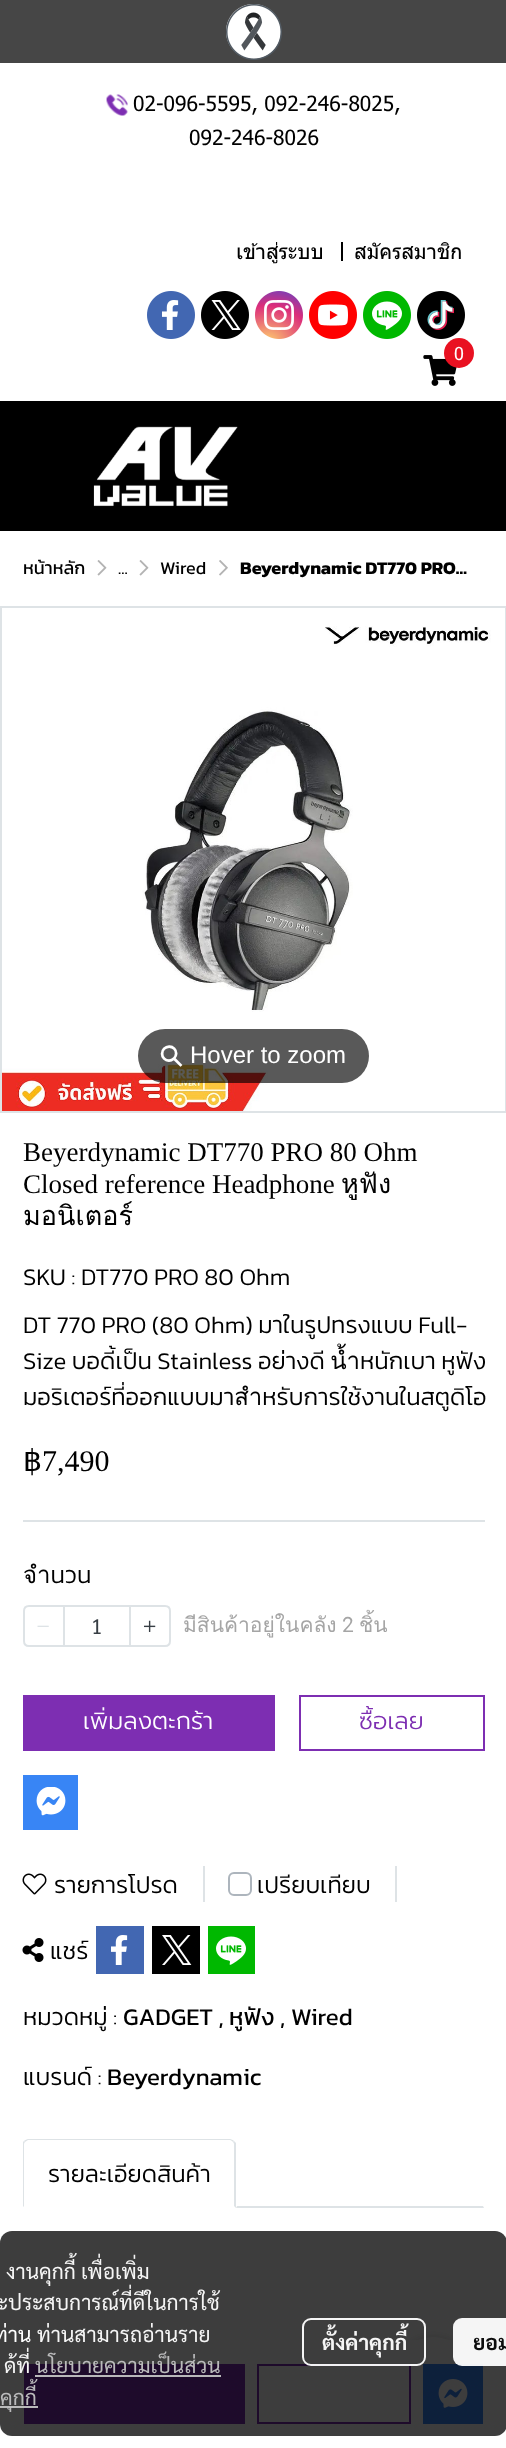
<?xml version="1.0" encoding="UTF-8"?>
<svg xmlns="http://www.w3.org/2000/svg" width="506" height="2448">
    <defs>
        <clipPath id="clip1"><rect x="23" y="2139" width="462" height="69"/></clipPath>
        <filter id="blur1" x="-50%" y="-200%" width="200%" height="500%"><feGaussianBlur stdDeviation="5"/></filter>
    </defs>
    <rect width="100%" height="100%" fill="#FFFFFF"/>
    <rect x="0" y="0" width="506" height="63" fill="#464646"/>
    <image x="226" y="4" width="56" height="56" href="img_01.png"/>
    <image x="106" y="94" width="22" height="22" href="img_02.png"/>
    <text x="133" y="111" font-family="Tahoma" font-size="21" fill="#000000">02-096-5595, 092-246-8025,</text>
    <text x="189" y="145" font-family="Tahoma" font-size="21" fill="#000000">092-246-8026</text>
    <text x="236" y="259" font-family="Tahoma" font-size="21" fill="#000000">เข้าสู่ระบบ</text>
    <rect x="341" y="242" width="2" height="19" fill="#000000"/>
    <text x="354" y="259" font-family="Tahoma" font-size="21" fill="#000000">สมัครสมาชิก</text>
    <image x="147" y="291" width="48" height="48" href="img_03.png"/>
    <image x="201" y="291" width="48" height="48" href="img_04.png"/>
    <image x="255" y="291" width="48" height="48" href="img_05.png"/>
    <image x="309" y="291" width="48" height="48" href="img_06.png"/>
    <image x="363" y="291" width="48" height="48" href="img_07.png"/>
    <image x="417" y="291" width="48" height="48" href="img_08.png"/>
    <image x="423" y="355" width="34" height="31" href="img_09.png"/>
    <circle cx="459" cy="353" r="15" fill="#E91121"/>
    <text x="454" y="360" font-family="Tahoma" font-size="18" fill="#FFFFFF">0</text>
    <rect x="0" y="401" width="506" height="130" fill="#000000"/>
    <image x="93" y="426" width="145" height="81" href="img_10.png"/>
    <text x="23" y="574" font-family="Kanit" font-size="18" fill="#000000">หน้าหลัก</text>
    <image x="97" y="560" width="10" height="16" href="img_11.png"/>
    <text x="118" y="574" font-family="Kanit" font-size="18" fill="#000000">...</text>
    <image x="139" y="560" width="10" height="16" href="img_11.png"/>
    <text x="160" y="574" font-family="Kanit" font-size="18" fill="#000000">Wired</text>
    <image x="219" y="560" width="9" height="16" href="img_12.png"/>
    <text x="240" y="574" font-family="Kanit" font-size="18" font-weight="700" fill="#000000">Beyerdynamic DT770 PRO…</text>
    <image x="2" y="626" width="489" height="485" href="img_13.png"/>
    <rect x="138" y="1029" width="231" height="54" rx="27" fill="#000000" fill-opacity="0.65"/>
    <rect x="1" y="607" width="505" height="505" fill="none" stroke="#DEE3E6" stroke-width="2"/>
    <text x="171" y="1071" transform="rotate(-45 171 1071)" font-family="DejaVu Sans" font-size="30" fill="#FFFFFF">⚲</text>
    <text x="190" y="1063" font-family="Liberation Sans" font-size="24" fill="#FFFFFF">Hover to zoom</text>
    <text font-family="Liberation Serif" font-size="27" fill="#000000">
        <tspan x="23" y="1161">Beyerdynamic DT770 PRO 80 Ohm</tspan>
        <tspan x="23" y="1193">Closed reference Headphone</tspan>
    </text>
    <text x="341" y="1193" font-family="Loma" font-size="27" fill="#000000">หูฟัง</text>
    <text x="23" y="1225" font-family="Loma" font-size="27" fill="#000000">มอนิเตอร์</text>
    <text x="23" y="1285" font-family="Kanit" font-size="24" font-weight="300" fill="#000000">SKU : DT770 PRO 80 Ohm</text>
    <text font-family="Kanit" font-size="24" font-weight="300" fill="#000000">
        <tspan x="23" y="1333">DT 770 PRO (80 Ohm) มาในรูปทรงแบบ Full-</tspan>
        <tspan x="23" y="1369">Size บอดี้เป็น Stainless อย่างดี น้ำหนักเบา หูฟัง</tspan>
        <tspan x="23" y="1405">มอริเตอร์ที่ออกแบบมาสำหรับการใช้งานในสตูดิโอ</tspan>
    </text>
    <text x="23" y="1471" font-family="DejaVu Sans" font-size="30" fill="#000000">฿</text>
    <text x="42" y="1471" font-family="Liberation Serif" font-size="30" fill="#000000">7,490</text>
    <rect x="23" y="1520" width="462" height="2" fill="#DEE3E6"/>
    <text x="23" y="1583" font-family="Kanit" font-size="24" font-weight="300" fill="#000000">จำนวน</text>
    <path d="M 29 1606 H 64 V 1646 H 29 C 26 1646 24 1644 24 1641 V 1611 C 24 1608 26 1606 29 1606 Z" fill="none" stroke="#DEE3E6" stroke-width="2"/>
    <image x="37" y="1625" width="12" height="2" href="img_14.png"/>
    <path d="M 130 1606 H 165 C 168 1606 170 1608 170 1611 V 1641 C 170 1644 168 1646 165 1646 H 130 Z" fill="none" stroke="#DEE3E6" stroke-width="2"/>
    <rect x="64" y="1606" width="66" height="40" fill="none" stroke="#DEE3E6" stroke-width="2"/>
    <text x="91" y="1634" font-family="Sarabun" font-size="21" fill="#373E44">1</text>
    <image x="144" y="1620" width="12" height="12" href="img_15.png"/>
    <text x="183" y="1632" font-family="Loma" font-size="21" fill="#A5A5A5">มีสินค้าอยู่ในคลัง</text>
    <text x="342" y="1632" font-family="Roboto" font-size="21" fill="#A5A5A5">2</text>
    <text x="359" y="1632" font-family="Loma" font-size="21" fill="#A5A5A5">ชิ้น</text>
    <rect x="23" y="1695" width="252" height="56" fill="#7D2EB2"/>
    <text x="83" y="1729" font-family="Prompt" font-size="24" font-weight="300" fill="#FFFFFF">เพิ่มลงตะกร้า</text>
    <rect x="300" y="1696" width="184" height="54" fill="none" stroke="#7D2EB2" stroke-width="2"/>
    <text x="359" y="1729" font-family="Prompt" font-size="24" font-weight="300" fill="#7D2EB2">ซื้อเลย</text>
    <rect x="23" y="1775" width="55" height="55" fill="#3885F5"/>
    <image x="36" y="1787" width="30" height="29" href="img_16.png"/>
    <rect x="203" y="1866" width="2" height="36" fill="#DEE3E6"/>
    <image x="22" y="1873" width="25" height="22" href="img_17.png"/>
    <text x="54" y="1893" font-family="Kanit" font-size="24" font-weight="300" fill="#000000">รายการโปรด</text>
    <rect x="395" y="1866" width="2" height="36" fill="#DEE3E6"/>
    <rect x="229" y="1873" width="22" height="22" rx="5" fill="none" stroke="#ADB5BD" stroke-width="2"/>
    <text x="257" y="1893" font-family="Kanit" font-size="24" font-weight="300" fill="#000000">เปรียบเทียบ</text>
    <image x="22" y="1938" width="22" height="24" href="img_18.png"/>
    <text x="50" y="1959" font-family="Kanit" font-size="24" font-weight="300" fill="#000000">แชร์</text>
    <image x="96" y="1926" width="48" height="48" href="img_19.png"/>
    <image x="152" y="1926" width="48" height="48" href="img_20.png"/>
    <image x="208" y="1926" width="47" height="48" href="img_21.png"/>
    <text x="23" y="2025" font-family="Kanit" font-size="24" font-weight="300" fill="#000000">หมวดหมู่ :</text>
    <text x="123" y="2025" font-family="Kanit" font-size="24" fill="#000000">GADGET ,</text>
    <text x="229" y="2025" font-family="Kanit" font-size="24" fill="#000000">หูฟัง ,</text>
    <text x="291" y="2025" font-family="Kanit" font-size="24" fill="#000000">Wired</text>
    <text x="23" y="2085" font-family="Kanit" font-size="24" font-weight="300" fill="#000000">แบรนด์ :</text>
    <text x="107" y="2085" font-family="Kanit" font-size="24" fill="#000000">Beyerdynamic</text>
    <path d="M 28 2139 C 27 2139 25 2140 24 2141 L 25 2142 L 28 2140 H 230 C 231 2140 232 2141 233 2142 L 234 2141 C 233 2140 231 2139 230 2139 Z" fill="#DEE3E6"/>
    <path d="M 236 2143 V 2208 L 234 2206 V 2145 C 234 2144 234 2143 233 2142 L 234 2141 Z" fill="#DEE3E6"/>
    <g clip-path="url(#clip1)">
        <path d="M 22 2208 V 2143 L 24 2141 L 25 2142 C 24 2143 24 2144 24 2145 V 2206 Z" fill="#DEE3E6"/>
    </g>
    <text x="48" y="2182" font-family="Kanit" font-size="24" font-weight="300" fill="#000000">รายละเอียดสินค้า</text>
    <path d="M 484 2208 H 236 L 237 2206 H 483 Z" fill="#DEE3E6"/>
    <rect x="396" y="2337" width="75" height="75" rx="37.5" fill="#000000" fill-opacity="0.14" filter="url(#blur1)"/>
    <circle cx="433.5" cy="2374.5" r="37.5" fill="#FFFFFF"/>
    <rect x="389" y="2340" width="89" height="79" fill="#FFFFFF"/>
    <rect x="24" y="2364" width="221" height="60" fill="#7D2EB2"/>
    <rect x="258" y="2365" width="152" height="58" fill="none" stroke="#7D2EB2" stroke-width="2"/>
    <rect x="423" y="2364" width="60" height="60" fill="#3885F5"/>
    <image x="438" y="2379" width="30" height="29" href="img_22.png"/>
    <rect x="0" y="2231" width="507" height="205" rx="12" fill="#000000" fill-opacity="0.76"/>
    <text x="6" y="2279" font-family="Sarabun" font-size="21" fill="#F5F5F5">งานคุกกี้ เพื่อเพิ่ม</text>
    <text x="-3" y="2310" font-family="Sarabun" font-size="21" fill="#F5F5F5">ะประสบการณ์ที่ดีในการใช้</text>
    <text x="-6" y="2342" font-family="Sarabun" font-size="21" fill="#FFFFFF">ท่าน</text>
    <text x="37" y="2342" font-family="Sarabun" font-size="21" fill="#F5F5F5">ท่านสามารถอ่านราย</text>
    <text x="4" y="2373" font-family="Sarabun" font-size="21" fill="#F5F5F5">ด้ที่</text>
    <text x="35" y="2373" font-family="Sarabun" font-size="21" fill="#BABABB">นโยบายความเป็นส่วน</text>
    <rect x="35" y="2375" width="186" height="2" fill="#C2C2C2" fill-opacity="0.95"/>
    <text x="0" y="2405" font-family="Sarabun" font-size="21" fill="#BABABB">คุกกี้</text>
    <rect x="0" y="2406" width="38" height="2" fill="#C2C2C2" fill-opacity="0.95"/>
    <rect x="303" y="2319" width="122" height="46" rx="8" fill="none" stroke="#FFFFFF" stroke-opacity="0.95" stroke-width="2"/>
    <text x="322" y="2350" font-family="Sarabun" font-size="21" font-weight="700" fill="#F5F5F5">ตั้งค่าคุกกี้</text>
    <rect x="453" y="2318" width="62" height="48" rx="9" fill="#FFFFFF" fill-opacity="0.95"/>
    <text x="473" y="2350" font-family="Sarabun" font-size="21" font-weight="700" fill="#0D0D0D">ยอม</text>
</svg>
